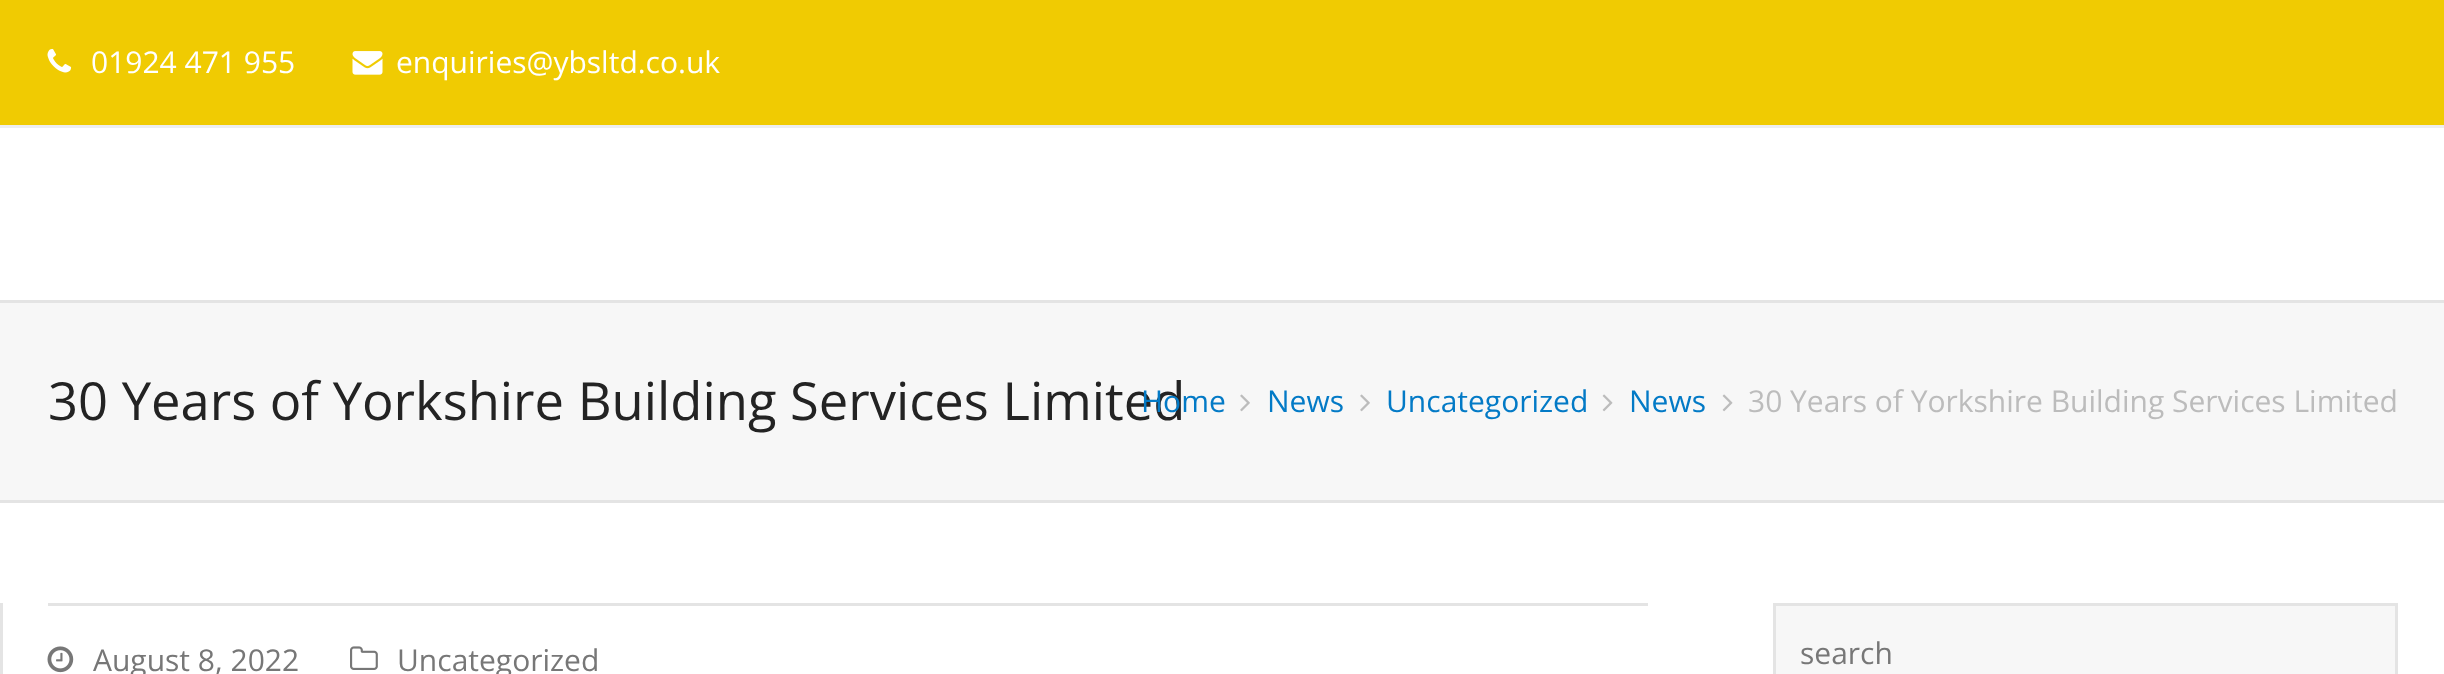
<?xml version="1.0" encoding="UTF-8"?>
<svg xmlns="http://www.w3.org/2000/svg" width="2444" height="674">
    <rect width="100%" height="100%" fill="#FFFFFF"/>
    <rect x="0" y="0" width="2444" height="125" fill="#F0CB02"/>
    <rect x="0" y="125" width="2444" height="3" fill="#EEEEEE"/>
    <image x="47" y="48" width="25" height="25" href="img_01.png"/>
    <text x="91" y="73" font-family="Open Sans" font-size="30" fill="#FFFFFF">01924 471 955</text>
    <image x="352" y="51" width="31" height="24" href="img_02.png"/>
    <text x="396" y="73" font-family="Open Sans" font-size="30" fill="#FFFFFF">enquiries@ybsltd.co.uk</text>
    <rect x="0" y="303" width="2444" height="197" fill="#F7F7F7"/>
    <rect x="0" y="300" width="2444" height="3" fill="#E4E4E4"/>
    <rect x="0" y="500" width="2444" height="3" fill="#E4E4E4"/>
    <text x="48" y="420" font-family="Open Sans" font-size="52.5" fill="#232323">30 Years of Yorkshire Building Services Limited</text>
    <text x="1141" y="412" font-family="Open Sans" font-size="30" fill="#037AC6">Home</text>
    <image x="1240" y="394" width="10" height="18" href="img_03.png"/>
    <text x="1267" y="412" font-family="Open Sans" font-size="30" fill="#037AC6">News</text>
    <image x="1360" y="394" width="10" height="18" href="img_03.png"/>
    <text x="1386" y="412" font-family="Open Sans" font-size="30" fill="#037AC6">Uncategorized</text>
    <image x="1602" y="394" width="11" height="18" href="img_04.png"/>
    <text x="1629" y="412" font-family="Open Sans" font-size="30" fill="#037AC6">News</text>
    <image x="1722" y="394" width="11" height="18" href="img_04.png"/>
    <text x="1748" y="412" font-family="Open Sans" font-size="30" fill="#BCBCBC">30 Years of Yorkshire Building Services Limited</text>
    <rect x="0" y="603" width="3" height="71" fill="#E4E4E4"/>
    <rect x="48" y="603" width="1600" height="3" fill="#E4E4E4"/>
    <image x="47" y="646" width="27" height="27" href="img_05.png"/>
    <text x="93" y="671" font-family="Open Sans" font-size="30" fill="#777777">August 8, 2022</text>
    <image x="350" y="646" width="28" height="24" href="img_06.png"/>
    <text x="397" y="671" font-family="Open Sans" font-size="30" fill="#777777">Uncategorized</text>
    <rect x="1774.5" y="604.5" width="622" height="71" fill="#F7F7F7" stroke="#E4E4E4" stroke-width="3"/>
    <text x="1800" y="664" font-family="Open Sans" font-size="30" fill="#777777">search</text>
</svg>
